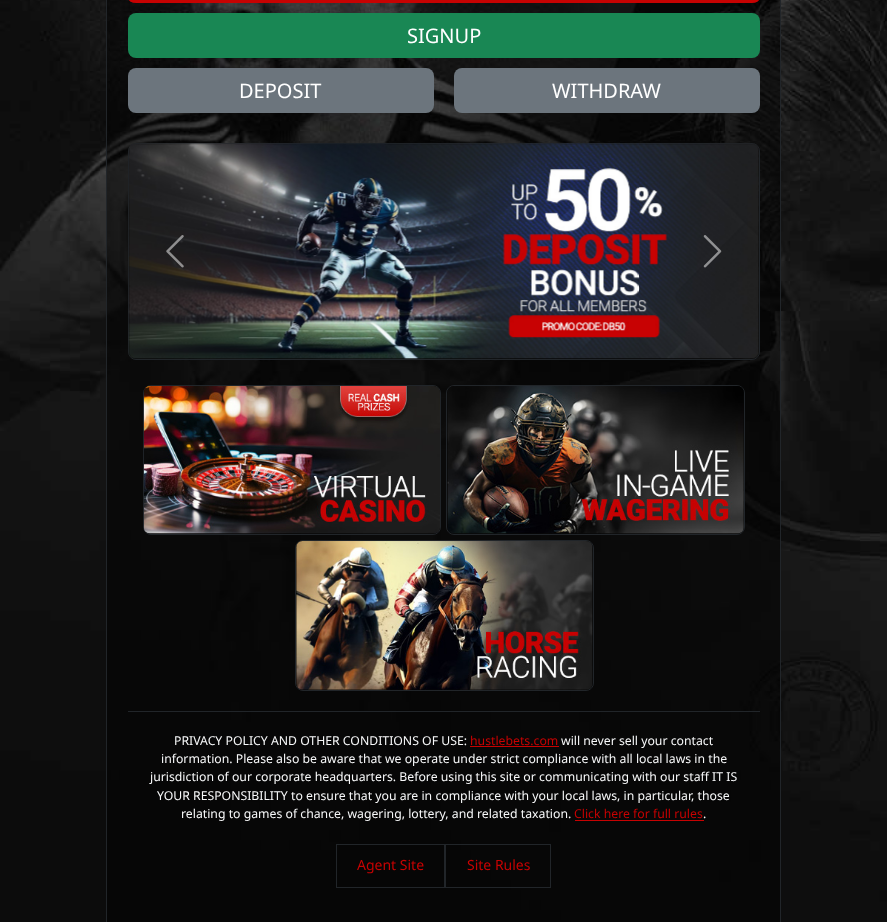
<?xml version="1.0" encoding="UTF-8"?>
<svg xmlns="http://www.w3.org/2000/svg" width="887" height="922">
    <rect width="100%" height="100%" fill="#FFFFFF"/>
    <image x="0" y="0" width="887" height="922" href="img_01.png"/>
    <rect x="106.5" y="-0.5" width="674" height="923" fill="#000000" fill-opacity="0.5" stroke="#212529"/>
    <rect x="128" y="-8" width="632" height="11" rx="8" fill="#C70202"/>
    <rect x="128" y="13" width="632" height="45" rx="8" fill="#198754"/>
    <text x="407" y="43" font-family="Noto Sans" font-size="20" fill="#FFFFFF">SIGNUP</text>
    <rect x="128" y="68" width="306" height="45" rx="8" fill="#6C757D"/>
    <text x="239" y="98" font-family="Noto Sans" font-size="20" fill="#FFFFFF">DEPOSIT</text>
    <rect x="454" y="68" width="306" height="45" rx="8" fill="#6C757D"/>
    <text x="552" y="98" font-family="Noto Sans" font-size="20" fill="#FFFFFF">WITHDRAW</text>
    <rect x="128.5" y="143.5" width="631" height="216" rx="7.5" fill="none" stroke="#212529"/>
    <image x="128" y="143" width="631" height="216" href="img_02.png"/>
    <image x="166" y="235" width="18" height="33" href="img_03.png"/>
    <image x="703" y="235" width="19" height="33" href="img_04.png"/>
    <rect x="143.5" y="385.5" width="297" height="149" rx="7.5" fill="none" stroke="#212529"/>
    <image x="143" y="386" width="297" height="148" href="img_05.png"/>
    <rect x="446.5" y="385.5" width="298" height="149" rx="7.5" fill="none" stroke="#212529"/>
    <image x="447" y="386" width="297" height="148" href="img_06.png"/>
    <rect x="295.5" y="540.5" width="298" height="150" rx="7.5" fill="none" stroke="#212529"/>
    <image x="296" y="541" width="297" height="149" href="img_07.png"/>
    <rect x="128" y="711" width="632" height="1" fill="#212529"/>
    <text x="174" y="745" font-family="Noto Sans" font-size="12.25" fill="#F8F9FA">PRIVACY POLICY AND OTHER CONDITIONS OF USE:</text>
    <text x="470" y="745" font-family="Noto Sans" font-size="12.25" fill="#C70202">hustlebets.com</text>
    <rect x="470" y="746" width="89" height="1" fill="#C70202"/>
    <text x="561" y="745" font-family="Noto Sans" font-size="12.25" fill="#F8F9FA">will never sell your contact</text>
    <text x="161" y="763" font-family="Noto Sans" font-size="12.25" fill="#F8F9FA">information. Please also be aware that we operate under strict compliance with all local laws in the</text>
    <text x="150" y="781" font-family="Noto Sans" font-size="12.25" fill="#F8F9FA">jurisdiction of our corporate headquarters. Before using this site or communicating with our staff IT IS</text>
    <text x="157" y="800" font-family="Noto Sans" font-size="12.25" fill="#F8F9FA">YOUR RESPONSIBILITY to ensure that you are in compliance with your local laws, in particular, those</text>
    <text x="181" y="818" font-family="Noto Sans" font-size="12.25" fill="#F8F9FA">relating to games of chance, wagering, lottery, and related taxation.</text>
    <text x="574" y="818" font-family="Noto Sans" font-size="12.25" fill="#C70202">Click here for full rules</text>
    <rect x="575" y="820" width="129" height="1" fill="#C70202"/>
    <text x="703" y="818" font-family="Noto Sans" font-size="12.25" fill="#F8F9FA">.</text>
    <rect x="336.5" y="844.5" width="108" height="43" fill="none" stroke="#212529"/>
    <text x="357" y="870" font-family="Noto Sans" font-size="14" fill="#C70202">Agent Site</text>
    <rect x="445.5" y="844.5" width="105" height="43" fill="none" stroke="#212529"/>
    <text x="467" y="870" font-family="Noto Sans" font-size="14" fill="#C70202">Site Rules</text>
</svg>
